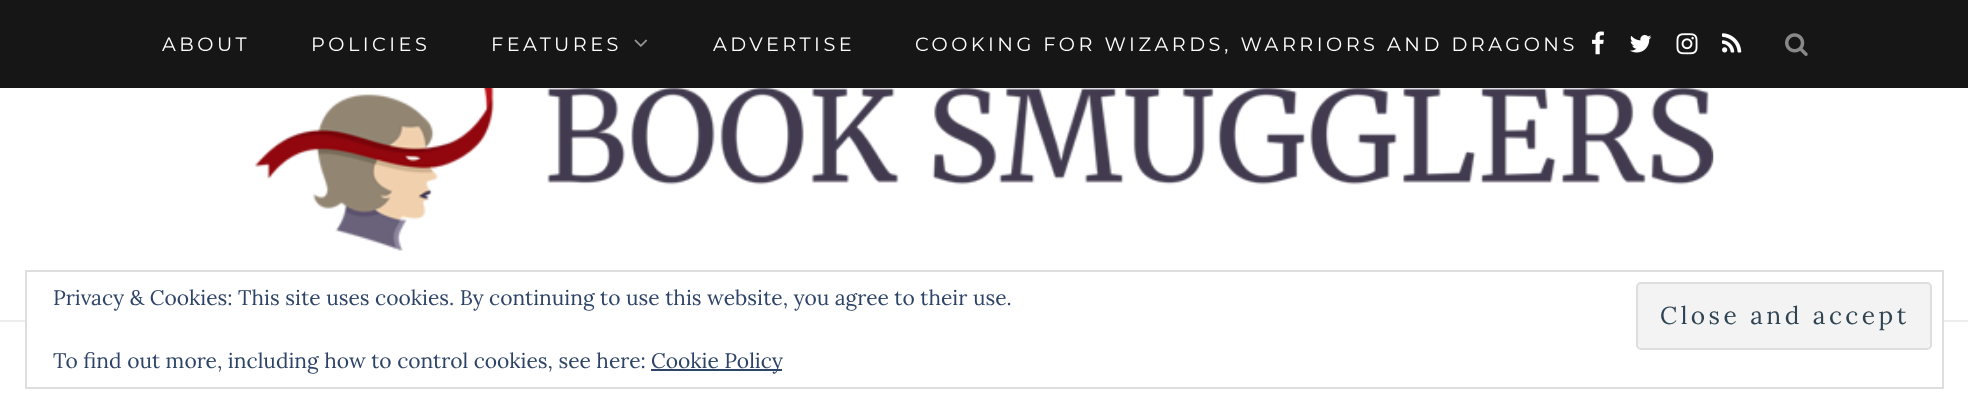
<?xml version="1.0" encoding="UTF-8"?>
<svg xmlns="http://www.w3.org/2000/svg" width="1968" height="413">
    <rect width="100%" height="100%" fill="#FFFFFF"/>
    <rect x="0" y="0" width="1968" height="88" fill="#161616"/>
    <text x="162" y="51" font-family="Montserrat" font-size="19.25" letter-spacing="3.5" fill="#FFFFFF">ABOUT</text>
    <text x="311" y="51" font-family="Montserrat" font-size="19.25" letter-spacing="3.5" fill="#FFFFFF">POLICIES</text>
    <text x="491" y="51" font-family="Montserrat" font-size="19.25" letter-spacing="3.5" fill="#FFFFFF">FEATURES</text>
    <image x="634" y="39" width="14" height="8" href="img_01.png"/>
    <text x="713" y="51" font-family="Montserrat" font-size="19.25" letter-spacing="3.5" fill="#FFFFFF">ADVERTISE</text>
    <text x="915" y="51" font-family="Montserrat" font-size="19.25" letter-spacing="3.5" fill="#FFFFFF">COOKING FOR WIZARDS, WARRIORS AND DRAGONS</text>
    <image x="1592" y="31" width="12" height="24" href="img_02.png"/>
    <image x="1630" y="35" width="22" height="18" href="img_03.png"/>
    <image x="1676" y="33" width="22" height="22" href="img_04.png"/>
    <image x="1722" y="33" width="20" height="20" href="img_05.png"/>
    <image x="1785" y="33" width="23" height="23" href="img_06.png"/>
    <rect x="0" y="320" width="1968" height="2" fill="#EEEEEE"/>
    <image x="255" y="88" width="1459" height="163" href="img_07.png"/>
    <rect x="27" y="320" width="1915" height="2" fill="#FFFFFF"/>
    <rect x="26" y="271" width="1917" height="117" fill="none" stroke="#DEDEDE" stroke-width="2"/>
    <text x="53" y="305" font-family="Lora" font-size="21" fill="#2E4467">Privacy &amp; Cookies: This site uses cookies. By continuing to use this website, you agree to their use.</text>
    <rect x="1637" y="283" width="294" height="66" rx="4" fill="#F3F3F3" stroke="#DEDEDE" stroke-width="2"/>
    <text x="1660" y="324" font-family="Lora" font-size="24.5" letter-spacing="3.5" fill="#2E4453">Close and accept</text>
    <text x="53" y="368" font-family="Lora" font-size="21" fill="#2E4467">To find out more, including how to control cookies, see here:</text>
    <rect x="651" y="369" width="131" height="2" fill="#2E4467"/>
    <text x="651" y="368" font-family="Lora" font-size="21" fill="#2E4467">Cookie Policy</text>
</svg>
